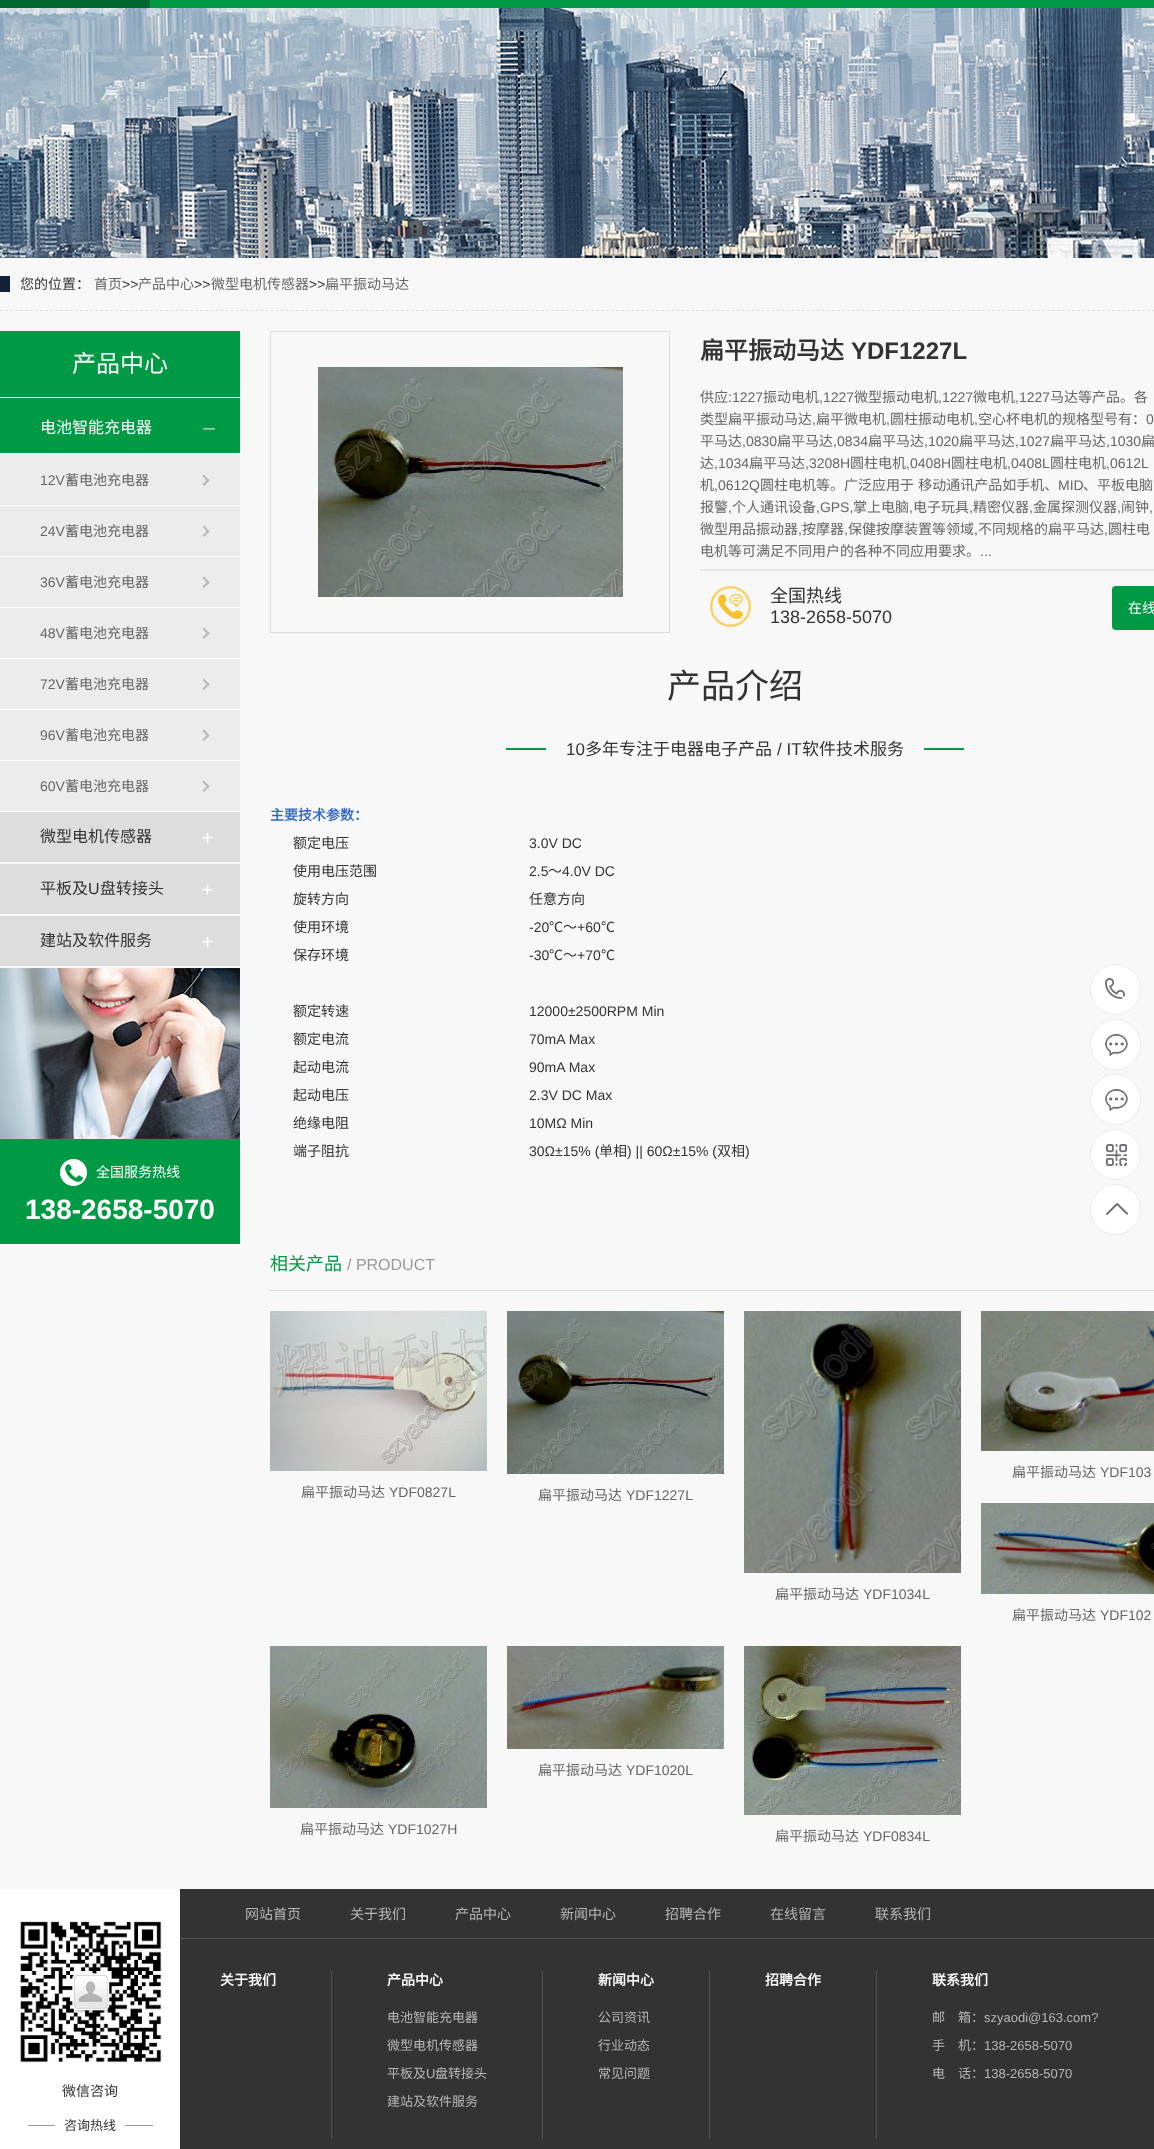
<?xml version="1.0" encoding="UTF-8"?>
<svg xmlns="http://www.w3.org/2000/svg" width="1154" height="2149">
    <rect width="100%" height="100%" fill="#F8F8F8"/>
    <rect x="150" y="0" width="1004" height="8" fill="#009A44"/>
    <rect x="0" y="0" width="150" height="8" fill="#00672F"/>
    <image x="0" y="8" width="1154" height="250" href="img_01.png"/>
    <path d="M 0 310.5 H 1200" fill="none" stroke="#DCDCDC" stroke-dasharray="3 2.01"/>
    <text x="20" y="289" font-family="Noto Sans CJK SC" font-size="14" fill="#333333">您的位置：</text>
    <rect x="0" y="276" width="10" height="16" fill="#142038"/>
    <text x="94" y="289" font-family="Noto Sans CJK SC" font-size="14" fill="#666666">首页</text>
    <text x="122" y="289" font-family="Liberation Sans" font-size="14" fill="#333333">&gt;&gt;</text>
    <text x="138" y="289" font-family="Noto Sans CJK SC" font-size="14" fill="#666666">产品中心</text>
    <text x="194" y="289" font-family="Liberation Sans" font-size="14" fill="#333333">&gt;&gt;</text>
    <text x="211" y="289" font-family="Noto Sans CJK SC" font-size="14" fill="#666666">微型电机传感器</text>
    <text x="309" y="289" font-family="Liberation Sans" font-size="14" fill="#333333">&gt;&gt;</text>
    <text x="325" y="289" font-family="Noto Sans CJK SC" font-size="14" fill="#666666">扁平振动马达</text>
    <rect x="0" y="331" width="240" height="122" fill="#009A44"/>
    <rect x="0" y="397" width="240" height="1" fill="#FFFFFF"/>
    <text x="72" y="372" font-family="Noto Sans CJK SC" font-size="24" fill="#FFFFFF">产品中心</text>
    <image x="203" y="428" width="12" height="2" href="img_02.png"/>
    <text x="40" y="433" font-family="Noto Sans CJK SC" font-size="16" fill="#FFFFFF">电池智能充电器</text>
    <rect x="0" y="505" width="240" height="1" fill="#FFFFFF"/>
    <rect x="0" y="455" width="240" height="50" fill="#ECECEC"/>
    <text x="40" y="485" font-family="Liberation Sans" font-size="14" fill="#666666">12V</text>
    <text x="65" y="485" font-family="Noto Sans CJK SC" font-size="14" fill="#666666">蓄电池充电器</text>
    <path d="M 204 474.5 L 209.5 480.5 L 208 482 L 202.5 476 Z" fill="#B8B8B8"/>
    <path d="M 208 479 L 209.5 480.5 L 204 486 L 202.5 484.5 Z" fill="#B8B8B8"/>
    <rect x="0" y="556" width="240" height="1" fill="#FFFFFF"/>
    <rect x="0" y="506" width="240" height="50" fill="#ECECEC"/>
    <text x="40" y="536" font-family="Liberation Sans" font-size="14" fill="#666666">24V</text>
    <text x="65" y="536" font-family="Noto Sans CJK SC" font-size="14" fill="#666666">蓄电池充电器</text>
    <path d="M 204 525.5 L 209.5 531.5 L 208 533 L 202.5 527 Z" fill="#B8B8B8"/>
    <path d="M 208 530 L 209.5 531.5 L 204 537 L 202.5 535.5 Z" fill="#B8B8B8"/>
    <rect x="0" y="607" width="240" height="1" fill="#FFFFFF"/>
    <rect x="0" y="557" width="240" height="50" fill="#ECECEC"/>
    <text x="40" y="587" font-family="Liberation Sans" font-size="14" fill="#666666">36V</text>
    <text x="65" y="587" font-family="Noto Sans CJK SC" font-size="14" fill="#666666">蓄电池充电器</text>
    <path d="M 204 576.5 L 209.5 582.5 L 208 584 L 202.5 578 Z" fill="#B8B8B8"/>
    <path d="M 208 581 L 209.5 582.5 L 204 588 L 202.5 586.5 Z" fill="#B8B8B8"/>
    <rect x="0" y="658" width="240" height="1" fill="#FFFFFF"/>
    <rect x="0" y="608" width="240" height="50" fill="#ECECEC"/>
    <text x="40" y="638" font-family="Liberation Sans" font-size="14" fill="#666666">48V</text>
    <text x="65" y="638" font-family="Noto Sans CJK SC" font-size="14" fill="#666666">蓄电池充电器</text>
    <path d="M 204 627.5 L 209.5 633.5 L 208 635 L 202.5 629 Z" fill="#B8B8B8"/>
    <path d="M 208 632 L 209.5 633.5 L 204 639 L 202.5 637.5 Z" fill="#B8B8B8"/>
    <rect x="0" y="709" width="240" height="1" fill="#FFFFFF"/>
    <rect x="0" y="659" width="240" height="50" fill="#ECECEC"/>
    <text x="40" y="689" font-family="Liberation Sans" font-size="14" fill="#666666">72V</text>
    <text x="65" y="689" font-family="Noto Sans CJK SC" font-size="14" fill="#666666">蓄电池充电器</text>
    <path d="M 204 678.5 L 209.5 684.5 L 208 686 L 202.5 680 Z" fill="#B8B8B8"/>
    <path d="M 208 683 L 209.5 684.5 L 204 690 L 202.5 688.5 Z" fill="#B8B8B8"/>
    <rect x="0" y="760" width="240" height="1" fill="#FFFFFF"/>
    <rect x="0" y="710" width="240" height="50" fill="#ECECEC"/>
    <text x="40" y="740" font-family="Liberation Sans" font-size="14" fill="#666666">96V</text>
    <text x="65" y="740" font-family="Noto Sans CJK SC" font-size="14" fill="#666666">蓄电池充电器</text>
    <path d="M 204 729.5 L 209.5 735.5 L 208 737 L 202.5 731 Z" fill="#B8B8B8"/>
    <path d="M 208 734 L 209.5 735.5 L 204 741 L 202.5 739.5 Z" fill="#B8B8B8"/>
    <rect x="0" y="811" width="240" height="1" fill="#FFFFFF"/>
    <rect x="0" y="761" width="240" height="50" fill="#ECECEC"/>
    <text x="40" y="791" font-family="Liberation Sans" font-size="14" fill="#666666">60V</text>
    <text x="65" y="791" font-family="Noto Sans CJK SC" font-size="14" fill="#666666">蓄电池充电器</text>
    <path d="M 204 780.5 L 209.5 786.5 L 208 788 L 202.5 782 Z" fill="#B8B8B8"/>
    <path d="M 208 785 L 209.5 786.5 L 204 792 L 202.5 790.5 Z" fill="#B8B8B8"/>
    <rect x="0" y="812" width="240" height="50" fill="#DDDDDD"/>
    <image x="202" y="832" width="11" height="11" href="img_03.png"/>
    <text x="40" y="842" font-family="Noto Sans CJK SC" font-size="16" fill="#333333">微型电机传感器</text>
    <rect x="0" y="864" width="240" height="50" fill="#DDDDDD"/>
    <image x="202" y="884" width="11" height="11" href="img_03.png"/>
    <text x="40" y="894" font-family="Noto Sans CJK SC" font-size="16" fill="#333333">平板及</text>
    <text x="88" y="894" font-family="Liberation Sans" font-size="16" fill="#333333">U</text>
    <text x="100" y="894" font-family="Noto Sans CJK SC" font-size="16" fill="#333333">盘转接头</text>
    <rect x="0" y="916" width="240" height="50" fill="#DDDDDD"/>
    <image x="202" y="936" width="11" height="11" href="img_03.png"/>
    <text x="40" y="946" font-family="Noto Sans CJK SC" font-size="16" fill="#333333">建站及软件服务</text>
    <image x="0" y="968" width="240" height="171" href="img_04.png"/>
    <rect x="0" y="1139" width="240" height="105" fill="#009A44"/>
    <image x="60" y="1159" width="27" height="27" href="img_05.png"/>
    <text x="96" y="1177" font-family="Noto Sans CJK SC" font-size="14" fill="#FFFFFF">全国服务热线</text>
    <text x="25" y="1219" font-family="Liberation Sans" font-size="28" font-weight="700" fill="#FFFFFF">138-2658-5070</text>
    <rect x="270.5" y="331.5" width="399" height="301" fill="none" stroke="#DDDDDD"/>
    <image x="318" y="367" width="305" height="230" href="img_06.png"/>
    <text x="700" y="359" font-family="Noto Sans CJK SC" font-size="24" font-weight="700" fill="#333333">扁平振动马达</text>
    <text x="851" y="359" font-family="Liberation Sans" font-size="24" font-weight="700" fill="#333333">YDF1227L</text>
    <text x="700" y="402" font-family="Noto Sans CJK SC" font-size="14" fill="#666666">供应</text>
    <text x="728" y="402" font-family="Liberation Sans" font-size="14" fill="#666666">:1227</text>
    <text x="763" y="402" font-family="Noto Sans CJK SC" font-size="14" fill="#666666">振动电机</text>
    <text x="819" y="402" font-family="Liberation Sans" font-size="14" fill="#666666">,1227</text>
    <text x="854" y="402" font-family="Noto Sans CJK SC" font-size="14" fill="#666666">微型振动电机</text>
    <text x="938" y="402" font-family="Liberation Sans" font-size="14" fill="#666666">,1227</text>
    <text x="973" y="402" font-family="Noto Sans CJK SC" font-size="14" fill="#666666">微电机</text>
    <text x="1015" y="402" font-family="Liberation Sans" font-size="14" fill="#666666">,1227</text>
    <text x="1050" y="402" font-family="Noto Sans CJK SC" font-size="14" fill="#666666">马达等产品。各</text>
    <text x="700" y="424" font-family="Noto Sans CJK SC" font-size="14" fill="#666666">类型扁平振动马达</text>
    <text x="812" y="424" font-family="Liberation Sans" font-size="14" fill="#666666">,</text>
    <text x="816" y="424" font-family="Noto Sans CJK SC" font-size="14" fill="#666666">扁平微电机</text>
    <text x="886" y="424" font-family="Liberation Sans" font-size="14" fill="#666666">,</text>
    <text x="890" y="424" font-family="Noto Sans CJK SC" font-size="14" fill="#666666">圆柱振动电机</text>
    <text x="974" y="424" font-family="Liberation Sans" font-size="14" fill="#666666">,</text>
    <text x="978" y="424" font-family="Noto Sans CJK SC" font-size="14" fill="#666666">空心杯电机的规格型号有：</text>
    <text x="1146" y="424" font-family="Liberation Sans" font-size="14" fill="#666666">0</text>
    <text x="700" y="446" font-family="Noto Sans CJK SC" font-size="14" fill="#666666">平马达</text>
    <text x="742" y="446" font-family="Liberation Sans" font-size="14" fill="#666666">,0830</text>
    <text x="777" y="446" font-family="Noto Sans CJK SC" font-size="14" fill="#666666">扁平马达</text>
    <text x="833" y="446" font-family="Liberation Sans" font-size="14" fill="#666666">,0834</text>
    <text x="868" y="446" font-family="Noto Sans CJK SC" font-size="14" fill="#666666">扁平马达</text>
    <text x="924" y="446" font-family="Liberation Sans" font-size="14" fill="#666666">,1020</text>
    <text x="959" y="446" font-family="Noto Sans CJK SC" font-size="14" fill="#666666">扁平马达</text>
    <text x="1015" y="446" font-family="Liberation Sans" font-size="14" fill="#666666">,1027</text>
    <text x="1050" y="446" font-family="Noto Sans CJK SC" font-size="14" fill="#666666">扁平马达</text>
    <text x="1106" y="446" font-family="Liberation Sans" font-size="14" fill="#666666">,1030</text>
    <text x="1141" y="446" font-family="Noto Sans CJK SC" font-size="14" fill="#666666">扁</text>
    <text x="700" y="468" font-family="Noto Sans CJK SC" font-size="14" fill="#666666">达</text>
    <text x="714" y="468" font-family="Liberation Sans" font-size="14" fill="#666666">,1034</text>
    <text x="749" y="468" font-family="Noto Sans CJK SC" font-size="14" fill="#666666">扁平马达</text>
    <text x="805" y="468" font-family="Liberation Sans" font-size="14" fill="#666666">,3208H</text>
    <text x="850" y="468" font-family="Noto Sans CJK SC" font-size="14" fill="#666666">圆柱电机</text>
    <text x="906" y="468" font-family="Liberation Sans" font-size="14" fill="#666666">,0408H</text>
    <text x="951" y="468" font-family="Noto Sans CJK SC" font-size="14" fill="#666666">圆柱电机</text>
    <text x="1007" y="468" font-family="Liberation Sans" font-size="14" fill="#666666">,0408L</text>
    <text x="1050" y="468" font-family="Noto Sans CJK SC" font-size="14" fill="#666666">圆柱电机</text>
    <text x="1106" y="468" font-family="Liberation Sans" font-size="14" fill="#666666">,0612L</text>
    <text x="700" y="490" font-family="Noto Sans CJK SC" font-size="14" fill="#666666">机</text>
    <text x="714" y="490" font-family="Liberation Sans" font-size="14" fill="#666666">,0612Q</text>
    <text x="760" y="490" word-spacing="1" font-family="Noto Sans CJK SC" font-size="14" fill="#666666">圆柱电机等。广泛应用于 移动通讯产品如手机、</text>
    <text x="1058" y="490" font-family="Liberation Sans" font-size="14" fill="#666666">MID</text>
    <text x="1083" y="490" font-family="Noto Sans CJK SC" font-size="14" fill="#666666">、平板电脑</text>
    <text x="700" y="512" font-family="Noto Sans CJK SC" font-size="14" fill="#666666">报警</text>
    <text x="728" y="512" font-family="Liberation Sans" font-size="14" fill="#666666">,</text>
    <text x="732" y="512" font-family="Noto Sans CJK SC" font-size="14" fill="#666666">个人通讯设备</text>
    <text x="816" y="512" font-family="Liberation Sans" font-size="14" fill="#666666">,GPS,</text>
    <text x="853" y="512" font-family="Noto Sans CJK SC" font-size="14" fill="#666666">掌上电脑</text>
    <text x="909" y="512" font-family="Liberation Sans" font-size="14" fill="#666666">,</text>
    <text x="913" y="512" font-family="Noto Sans CJK SC" font-size="14" fill="#666666">电子玩具</text>
    <text x="969" y="512" font-family="Liberation Sans" font-size="14" fill="#666666">,</text>
    <text x="973" y="512" font-family="Noto Sans CJK SC" font-size="14" fill="#666666">精密仪器</text>
    <text x="1029" y="512" font-family="Liberation Sans" font-size="14" fill="#666666">,</text>
    <text x="1033" y="512" font-family="Noto Sans CJK SC" font-size="14" fill="#666666">金属探测仪器</text>
    <text x="1117" y="512" font-family="Liberation Sans" font-size="14" fill="#666666">,</text>
    <text x="1121" y="512" font-family="Noto Sans CJK SC" font-size="14" fill="#666666">闹钟</text>
    <text x="1149" y="512" font-family="Liberation Sans" font-size="14" fill="#666666">,</text>
    <text x="700" y="534" font-family="Noto Sans CJK SC" font-size="14" fill="#666666">微型用品振动器</text>
    <text x="798" y="534" font-family="Liberation Sans" font-size="14" fill="#666666">,</text>
    <text x="802" y="534" font-family="Noto Sans CJK SC" font-size="14" fill="#666666">按摩器</text>
    <text x="844" y="534" font-family="Liberation Sans" font-size="14" fill="#666666">,</text>
    <text x="848" y="534" font-family="Noto Sans CJK SC" font-size="14" fill="#666666">保健按摩装置等领域</text>
    <text x="974" y="534" font-family="Liberation Sans" font-size="14" fill="#666666">,</text>
    <text x="978" y="534" font-family="Noto Sans CJK SC" font-size="14" fill="#666666">不同规格的扁平马达</text>
    <text x="1104" y="534" font-family="Liberation Sans" font-size="14" fill="#666666">,</text>
    <text x="1108" y="534" font-family="Noto Sans CJK SC" font-size="14" fill="#666666">圆柱电</text>
    <text x="700" y="556" font-family="Noto Sans CJK SC" font-size="14" fill="#666666">电机等可满足不同用户的各种不同应用要求。</text>
    <text x="980" y="556" font-family="Liberation Sans" font-size="14" fill="#666666">...</text>
    <image x="710" y="586" width="41" height="41" href="img_07.png"/>
    <rect x="700" y="569" width="454" height="2" fill="#E6E6E6"/>
    <text x="770" y="602" font-family="Noto Sans CJK SC" font-size="18" fill="#333333">全国热线</text>
    <rect x="1112" y="586" width="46" height="44" rx="4" fill="#009A44"/>
    <text x="1128" y="613" font-family="Noto Sans CJK SC" font-size="14" fill="#FFFFFF">在线</text>
    <text x="770" y="623" font-family="Liberation Sans" font-size="18" fill="#333333">138-2658-5070</text>
    <text x="667" y="698" font-family="Noto Sans CJK SC" font-size="34" fill="#333333">产品介绍</text>
    <rect x="506" y="748" width="40" height="2" fill="#009A44"/>
    <text x="566" y="755" font-family="Liberation Sans" font-size="17" fill="#333333">10</text>
    <text x="585" y="755" font-family="Noto Sans CJK SC" font-size="17" fill="#333333">多年专注于电器电子产品</text>
    <text x="777" y="755" font-family="Liberation Sans" font-size="17" fill="#333333">/ IT</text>
    <text x="802" y="755" font-family="Noto Sans CJK SC" font-size="17" fill="#333333">软件技术服务</text>
    <rect x="924" y="748" width="40" height="2" fill="#009A44"/>
    <text x="270" y="820" font-family="Noto Sans CJK SC" font-size="14" font-weight="700" fill="#3366CC">主要技术参数：</text>
    <text x="293" y="848" font-family="Noto Sans CJK SC" font-size="14" fill="#333333">额定电压</text>
    <text x="529" y="848" font-family="Liberation Sans" font-size="14" fill="#333333">3.0V DC</text>
    <text x="293" y="876" font-family="Noto Sans CJK SC" font-size="14" fill="#333333">使用电压范围</text>
    <text x="529" y="876" font-family="Liberation Sans" font-size="14" fill="#333333">2.5</text>
    <text x="548" y="876" font-family="Noto Sans CJK SC" font-size="14" fill="#333333">～</text>
    <text x="562" y="876" font-family="Liberation Sans" font-size="14" fill="#333333">4.0V DC</text>
    <text x="293" y="904" font-family="Noto Sans CJK SC" font-size="14" fill="#333333">旋转方向</text>
    <text x="529" y="904" font-family="Noto Sans CJK SC" font-size="14" fill="#333333">任意方向</text>
    <text x="293" y="932" font-family="Noto Sans CJK SC" font-size="14" fill="#333333">使用环境</text>
    <text x="529" y="932" font-family="Liberation Sans" font-size="14" fill="#333333">-20</text>
    <text x="549" y="932" font-family="Noto Sans CJK SC" font-size="14" fill="#333333">℃～</text>
    <text x="577" y="932" font-family="Liberation Sans" font-size="14" fill="#333333">+60</text>
    <text x="601" y="932" font-family="Noto Sans CJK SC" font-size="14" fill="#333333">℃</text>
    <text x="293" y="960" font-family="Noto Sans CJK SC" font-size="14" fill="#333333">保存环境</text>
    <text x="529" y="960" font-family="Liberation Sans" font-size="14" fill="#333333">-30</text>
    <text x="549" y="960" font-family="Noto Sans CJK SC" font-size="14" fill="#333333">℃～</text>
    <text x="577" y="960" font-family="Liberation Sans" font-size="14" fill="#333333">+70</text>
    <text x="601" y="960" font-family="Noto Sans CJK SC" font-size="14" fill="#333333">℃</text>
    <text x="293" y="1016" font-family="Noto Sans CJK SC" font-size="14" fill="#333333">额定转速</text>
    <text x="529" y="1016" font-family="Liberation Sans" font-size="14" fill="#333333">12000±2500RPM Min</text>
    <text x="293" y="1044" font-family="Noto Sans CJK SC" font-size="14" fill="#333333">额定电流</text>
    <text x="529" y="1044" font-family="Liberation Sans" font-size="14" fill="#333333">70mA Max</text>
    <text x="293" y="1072" font-family="Noto Sans CJK SC" font-size="14" fill="#333333">起动电流</text>
    <text x="529" y="1072" font-family="Liberation Sans" font-size="14" fill="#333333">90mA Max</text>
    <text x="293" y="1100" font-family="Noto Sans CJK SC" font-size="14" fill="#333333">起动电压</text>
    <text x="529" y="1100" font-family="Liberation Sans" font-size="14" fill="#333333">2.3V DC Max</text>
    <text x="293" y="1128" font-family="Noto Sans CJK SC" font-size="14" fill="#333333">绝缘电阻</text>
    <text x="529" y="1128" font-family="Liberation Sans" font-size="14" fill="#333333">10MΩ Min</text>
    <text x="293" y="1156" font-family="Noto Sans CJK SC" font-size="14" fill="#333333">端子阻抗</text>
    <text x="529" y="1156" font-family="Liberation Sans" font-size="14" fill="#333333">30Ω±15% (</text>
    <text x="599" y="1156" font-family="Noto Sans CJK SC" font-size="14" fill="#333333">单相</text>
    <text x="627" y="1156" font-family="Liberation Sans" font-size="14" fill="#333333">) || 60Ω±15% (</text>
    <text x="717" y="1156" font-family="Noto Sans CJK SC" font-size="14" fill="#333333">双相</text>
    <text x="745" y="1156" font-family="Liberation Sans" font-size="14" fill="#333333">)</text>
    <rect x="270" y="1290" width="884" height="1" fill="#DDDDDD"/>
    <text x="270" y="1270" font-family="Noto Sans CJK SC" font-size="18" fill="#009A44">相关产品</text>
    <text x="347" y="1270" font-family="Liberation Sans" font-size="16" fill="#999999">/ PRODUCT</text>
    <image x="981" y="1311" width="173" height="140" href="img_08.png"/>
    <text x="1012" y="1477" font-family="Noto Sans CJK SC" font-size="14" fill="#666666">扁平振动马达</text>
    <text x="1100" y="1477" font-family="Liberation Sans" font-size="14" fill="#666666">YDF103</text>
    <image x="270" y="1311" width="217" height="160" href="img_09.png"/>
    <text x="301" y="1497" font-family="Noto Sans CJK SC" font-size="14" fill="#666666">扁平振动马达</text>
    <text x="389" y="1497" font-family="Liberation Sans" font-size="14" fill="#666666">YDF0827L</text>
    <image x="507" y="1311" width="217" height="163" href="img_10.png"/>
    <text x="538" y="1500" font-family="Noto Sans CJK SC" font-size="14" fill="#666666">扁平振动马达</text>
    <text x="626" y="1500" font-family="Liberation Sans" font-size="14" fill="#666666">YDF1227L</text>
    <image x="744" y="1311" width="217" height="262" href="img_11.png"/>
    <text x="775" y="1599" font-family="Noto Sans CJK SC" font-size="14" fill="#666666">扁平振动马达</text>
    <text x="863" y="1599" font-family="Liberation Sans" font-size="14" fill="#666666">YDF1034L</text>
    <image x="981" y="1503" width="173" height="91" href="img_12.png"/>
    <text x="1012" y="1620" font-family="Noto Sans CJK SC" font-size="14" fill="#666666">扁平振动马达</text>
    <text x="1100" y="1620" font-family="Liberation Sans" font-size="14" fill="#666666">YDF102</text>
    <image x="507" y="1646" width="217" height="103" href="img_13.png"/>
    <text x="538" y="1775" font-family="Noto Sans CJK SC" font-size="14" fill="#666666">扁平振动马达</text>
    <text x="626" y="1775" font-family="Liberation Sans" font-size="14" fill="#666666">YDF1020L</text>
    <image x="270" y="1646" width="217" height="162" href="img_14.png"/>
    <text x="300" y="1834" font-family="Noto Sans CJK SC" font-size="14" fill="#666666">扁平振动马达</text>
    <text x="388" y="1834" font-family="Liberation Sans" font-size="14" fill="#666666">YDF1027H</text>
    <image x="744" y="1646" width="217" height="169" href="img_15.png"/>
    <text x="775" y="1841" font-family="Noto Sans CJK SC" font-size="14" fill="#666666">扁平振动马达</text>
    <text x="863" y="1841" font-family="Liberation Sans" font-size="14" fill="#666666">YDF0834L</text>
    <circle cx="1115.5" cy="989.5" r="25" fill="#FFFFFF" stroke="#EBEBEB"/>
    <image x="1105" y="978" width="20" height="21" href="img_16.png"/>
    <circle cx="1115.5" cy="1044.5" r="25" fill="#FFFFFF" stroke="#EBEBEB"/>
    <image x="1105" y="1034" width="23" height="22" href="img_17.png"/>
    <circle cx="1115.5" cy="1099.5" r="25" fill="#FFFFFF" stroke="#EBEBEB"/>
    <image x="1105" y="1089" width="23" height="22" href="img_17.png"/>
    <circle cx="1115.5" cy="1154.5" r="25" fill="#FFFFFF" stroke="#EBEBEB"/>
    <image x="1106" y="1144" width="21" height="22" href="img_18.png"/>
    <circle cx="1115.5" cy="1209.5" r="25" fill="#FFFFFF" stroke="#EBEBEB"/>
    <image x="1106" y="1203" width="22" height="12" href="img_19.png"/>
    <rect x="180" y="1889" width="974" height="260" fill="#333333"/>
    <rect x="180" y="1938" width="974" height="1" fill="#545454"/>
    <text x="245" y="1919" font-family="Noto Sans CJK SC" font-size="14" fill="#B6B6B6">网站首页</text>
    <text x="350" y="1919" font-family="Noto Sans CJK SC" font-size="14" fill="#B6B6B6">关于我们</text>
    <text x="455" y="1919" font-family="Noto Sans CJK SC" font-size="14" fill="#B6B6B6">产品中心</text>
    <text x="560" y="1919" font-family="Noto Sans CJK SC" font-size="14" fill="#B6B6B6">新闻中心</text>
    <text x="665" y="1919" font-family="Noto Sans CJK SC" font-size="14" fill="#B6B6B6">招聘合作</text>
    <text x="770" y="1919" font-family="Noto Sans CJK SC" font-size="14" fill="#B6B6B6">在线留言</text>
    <text x="875" y="1919" font-family="Noto Sans CJK SC" font-size="14" fill="#B6B6B6">联系我们</text>
    <rect x="0" y="1889" width="180" height="260" fill="#FFFFFF"/>
    <image x="20" y="1921" width="142" height="142" href="img_20.png"/>
    <text x="62" y="2096" font-family="Noto Sans CJK SC" font-size="14" fill="#333333">微信咨询</text>
    <rect x="28" y="2125" width="125" height="1" fill="#999999"/>
    <rect x="55" y="2125" width="70" height="1" fill="#FFFFFF"/>
    <text x="64" y="2130" font-family="Noto Sans CJK SC" font-size="13" fill="#333333">咨询热线</text>
    <text x="220" y="1985" font-family="Noto Sans CJK SC" font-size="14" font-weight="700" fill="#FFFFFF">关于我们</text>
    <rect x="331" y="1971" width="1" height="168" fill="#545454"/>
    <text x="387" y="1985" font-family="Noto Sans CJK SC" font-size="14" font-weight="700" fill="#FFFFFF">产品中心</text>
    <text x="387" y="2022" font-family="Noto Sans CJK SC" font-size="13" fill="#B6B6B6">电池智能充电器</text>
    <text x="387" y="2050" font-family="Noto Sans CJK SC" font-size="13" fill="#B6B6B6">微型电机传感器</text>
    <text x="387" y="2078" font-family="Noto Sans CJK SC" font-size="13" fill="#B6B6B6">平板及</text>
    <text x="426" y="2078" font-family="Liberation Sans" font-size="13" fill="#B6B6B6">U</text>
    <text x="435" y="2078" font-family="Noto Sans CJK SC" font-size="13" fill="#B6B6B6">盘转接头</text>
    <text x="387" y="2106" font-family="Noto Sans CJK SC" font-size="13" fill="#B6B6B6">建站及软件服务</text>
    <rect x="542" y="1971" width="1" height="168" fill="#545454"/>
    <text x="598" y="1985" font-family="Noto Sans CJK SC" font-size="14" font-weight="700" fill="#FFFFFF">新闻中心</text>
    <text x="598" y="2022" font-family="Noto Sans CJK SC" font-size="13" fill="#B6B6B6">公司资讯</text>
    <text x="598" y="2050" font-family="Noto Sans CJK SC" font-size="13" fill="#B6B6B6">行业动态</text>
    <text x="598" y="2078" font-family="Noto Sans CJK SC" font-size="13" fill="#B6B6B6">常见问题</text>
    <rect x="709" y="1971" width="1" height="168" fill="#545454"/>
    <text x="765" y="1985" font-family="Noto Sans CJK SC" font-size="14" font-weight="700" fill="#FFFFFF">招聘合作</text>
    <rect x="876" y="1971" width="1" height="168" fill="#545454"/>
    <text x="932" y="1985" font-family="Noto Sans CJK SC" font-size="14" font-weight="700" fill="#FFFFFF">联系我们</text>
    <text x="932" y="2022" font-family="Noto Sans CJK SC" font-size="13" fill="#B6B6B6">邮　箱：</text>
    <text x="984" y="2022" font-family="Liberation Sans" font-size="13" fill="#B6B6B6">szyaodi@163.com?</text>
    <text x="932" y="2050" font-family="Noto Sans CJK SC" font-size="13" fill="#B6B6B6">手　机：</text>
    <text x="984" y="2050" font-family="Liberation Sans" font-size="13" fill="#B6B6B6">138-2658-5070</text>
    <text x="932" y="2078" font-family="Noto Sans CJK SC" font-size="13" fill="#B6B6B6">电　话：</text>
    <text x="984" y="2078" font-family="Liberation Sans" font-size="13" fill="#B6B6B6">138-2658-5070</text>
</svg>
